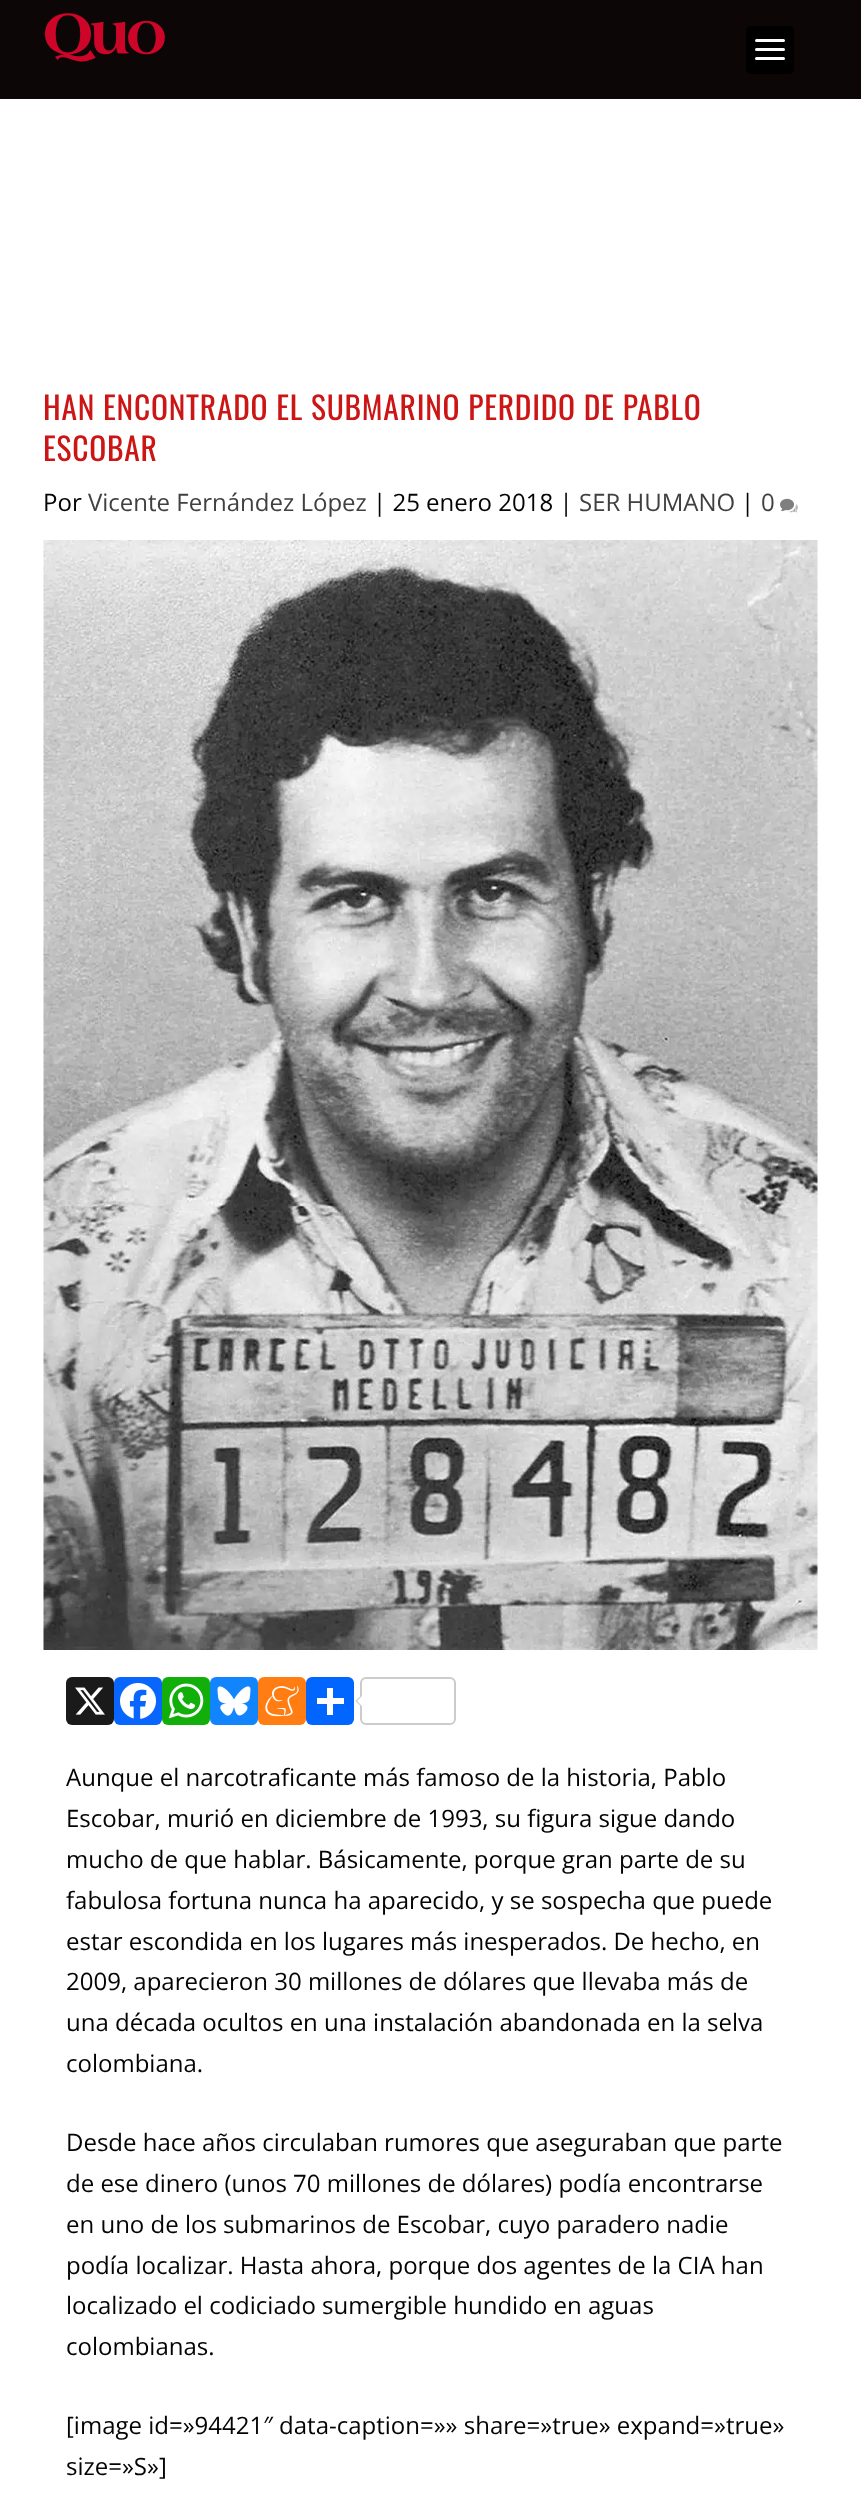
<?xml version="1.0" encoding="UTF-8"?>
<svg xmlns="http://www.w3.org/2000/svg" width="861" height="2504">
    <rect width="100%" height="100%" fill="#FFFFFF"/>
    <rect x="0" y="0" width="861" height="99" fill="#0C0606"/>
    <image x="45" y="13" width="120" height="49" href="img_01.png"/>
    <rect x="746" y="26" width="48" height="48" rx="5" fill="#000000"/>
    <rect x="755" y="39" width="30" height="3" rx="1.5" fill="#FFFFFF"/>
    <rect x="755" y="48" width="30" height="3" rx="1.5" fill="#FFFFFF"/>
    <rect x="755" y="57" width="30" height="3" rx="1.5" fill="#FFFFFF"/>
    <text font-family="Oswald" font-size="31.5" letter-spacing="0.75" fill="#CC1515">
        <tspan x="43" y="420">HAN ENCONTRADO EL SUBMARINO PERDIDO DE PABLO</tspan>
        <tspan x="43" y="461">ESCOBAR</tspan>
    </text>
    <text x="43" y="511" font-family="Open Sans" font-size="24" fill="#030303">Por</text>
    <text x="88" y="511" font-family="Open Sans" font-size="24" fill="#404040">Vicente Fernández López</text>
    <text x="373" y="511" font-family="Open Sans" font-size="24" fill="#030303">| 25 enero 2018 |</text>
    <text x="579" y="511" font-family="Open Sans" font-size="24" fill="#404040">SER HUMANO</text>
    <text x="741" y="511" font-family="Open Sans" font-size="24" fill="#030303">|</text>
    <text x="761" y="511" font-family="Open Sans" font-size="24" fill="#404040">0</text>
    <image x="780" y="498" width="18" height="15" href="img_02.png"/>
    <image x="43" y="540" width="775" height="1110" href="img_03.png"/>
    <rect x="66" y="1677" width="48" height="48" rx="6" fill="#1A1A1A"/>
    <image x="75" y="1687" width="30" height="28" href="img_04.png"/>
    <rect x="114" y="1677" width="48" height="48" rx="6" fill="#0866FF"/>
    <image x="120" y="1683" width="36" height="36" href="img_05.png"/>
    <rect x="162" y="1677" width="48" height="48" rx="6" fill="#12AF0A"/>
    <image x="168" y="1683" width="36" height="36" href="img_06.png"/>
    <rect x="210" y="1677" width="48" height="48" rx="6" fill="#1285FE"/>
    <image x="217" y="1686" width="34" height="30" href="img_07.png"/>
    <rect x="258" y="1677" width="48" height="48" rx="6" fill="#FF7D12"/>
    <image x="265" y="1685" width="34" height="32" href="img_08.png"/>
    <rect x="306" y="1677" width="48" height="48" rx="6" fill="#0166FF"/>
    <rect x="327" y="1688" width="6" height="27" fill="#FFFFFF"/>
    <rect x="317" y="1698" width="27" height="6" fill="#FFFFFF"/>
    <rect x="361" y="1678" width="94" height="46" rx="5" fill="none" stroke="#CCCCCC" stroke-width="2"/>
    <path d="M 361.5 1695 V 1707 L 355.5 1701 Z" fill="#CCCCCC"/>
    <path d="M 363 1695 V 1707 L 357 1701 Z" fill="#FFFFFF"/>
    <text font-family="Open Sans" font-size="24" fill="#030303">
        <tspan x="66" y="1786">Aunque el narcotraficante más famoso de la historia, Pablo</tspan>
        <tspan x="66" y="1827">Escobar, murió en diciembre de 1993, su figura sigue dando</tspan>
        <tspan x="66" y="1868">mucho de que hablar. Básicamente, porque gran parte de su</tspan>
        <tspan x="66" y="1909">fabulosa fortuna nunca ha aparecido, y se sospecha que puede</tspan>
        <tspan x="66" y="1950">estar escondida en los lugares más inesperados. De hecho, en</tspan>
        <tspan x="66" y="1990">2009, aparecieron 30 millones de dólares que llevaba más de</tspan>
        <tspan x="66" y="2031">una década ocultos en una instalación abandonada en la selva</tspan>
        <tspan x="66" y="2072">colombiana.</tspan>
    </text>
    <text font-family="Open Sans" font-size="24" fill="#030303">
        <tspan x="66" y="2151">Desde hace años circulaban rumores que aseguraban que parte</tspan>
        <tspan x="66" y="2192">de ese dinero (unos 70 millones de dólares) podía encontrarse</tspan>
        <tspan x="66" y="2233">en uno de los submarinos de Escobar, cuyo paradero nadie</tspan>
        <tspan x="66" y="2274">podía localizar. Hasta ahora, porque dos agentes de la CIA han</tspan>
        <tspan x="66" y="2314">localizado el codiciado sumergible hundido en aguas</tspan>
        <tspan x="66" y="2355">colombianas.</tspan>
    </text>
    <text font-family="Open Sans" font-size="24" fill="#030303">
        <tspan x="66" y="2434">[image id=»94421″ data-caption=»» share=»true» expand=»true»</tspan>
        <tspan x="66" y="2475">size=»S»]</tspan>
    </text>
</svg>
